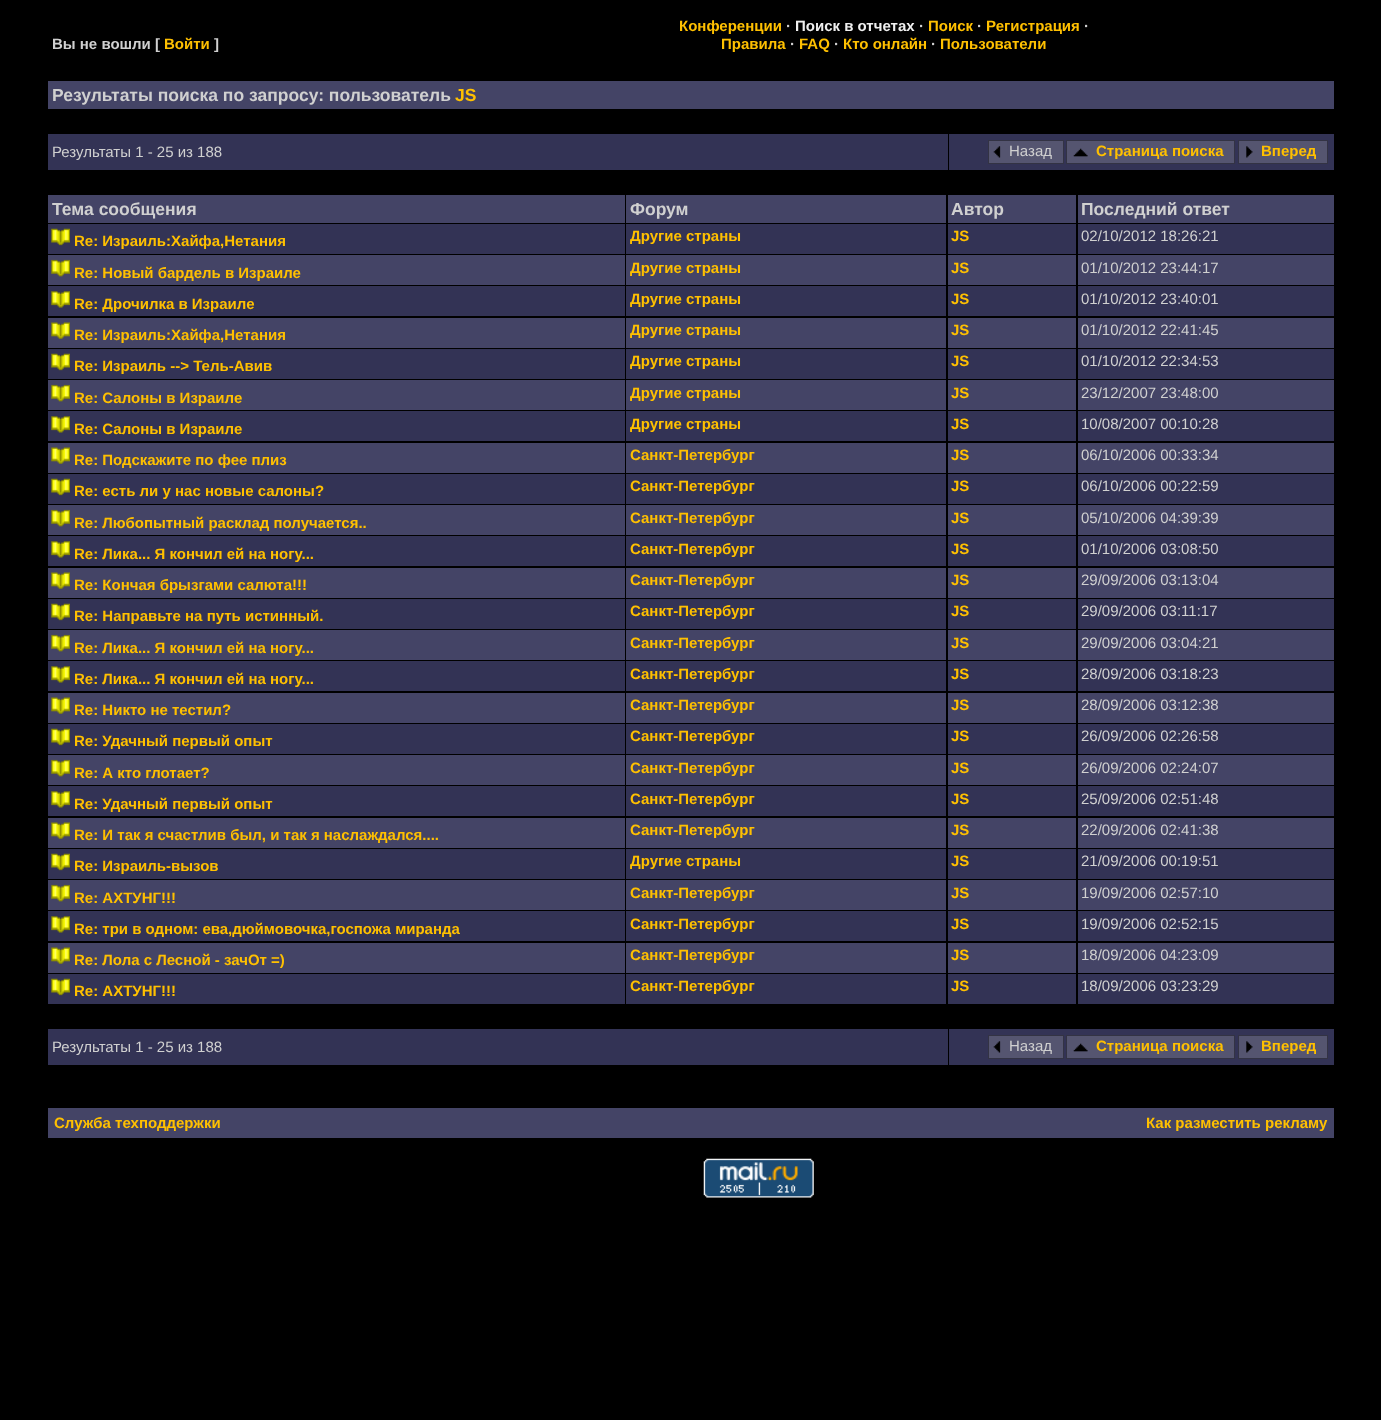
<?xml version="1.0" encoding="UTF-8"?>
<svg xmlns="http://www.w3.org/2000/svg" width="1381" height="1420">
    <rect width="100%" height="100%" fill="#000000"/>
    <text x="52" y="49" font-family="Liberation Sans" font-size="15" font-weight="700" fill="#D0D0D0">Вы не вошли [</text>
    <text x="164" y="49" font-family="Liberation Sans" font-size="15" font-weight="700" fill="#FFC000">Войти</text>
    <text x="214" y="49" font-family="Liberation Sans" font-size="15" font-weight="700" fill="#D0D0D0">]</text>
    <text x="679" y="31" font-family="Liberation Sans" font-size="15" font-weight="700" fill="#FFC000">Конференции</text>
    <text x="786" y="31" font-family="Liberation Sans" font-size="15" font-weight="700" fill="#D0D0D0">·</text>
    <text x="795" y="31" font-family="Liberation Sans" font-size="15" font-weight="700" fill="#F0F0F0">Поиск в отчетах</text>
    <text x="919" y="31" font-family="Liberation Sans" font-size="15" font-weight="700" fill="#D0D0D0">·</text>
    <text x="928" y="31" font-family="Liberation Sans" font-size="15" font-weight="700" fill="#FFC000">Поиск</text>
    <text x="977" y="31" font-family="Liberation Sans" font-size="15" font-weight="700" fill="#D0D0D0">·</text>
    <text x="986" y="31" font-family="Liberation Sans" font-size="15" font-weight="700" fill="#FFC000">Регистрация</text>
    <text x="1084" y="31" font-family="Liberation Sans" font-size="15" font-weight="700" fill="#D0D0D0">·</text>
    <text x="721" y="49" font-family="Liberation Sans" font-size="15" font-weight="700" fill="#FFC000">Правила</text>
    <text x="790" y="49" font-family="Liberation Sans" font-size="15" font-weight="700" fill="#D0D0D0">·</text>
    <text x="799" y="49" font-family="Liberation Sans" font-size="15" font-weight="700" fill="#FFC000">FAQ</text>
    <text x="834" y="49" font-family="Liberation Sans" font-size="15" font-weight="700" fill="#D0D0D0">·</text>
    <text x="843" y="49" font-family="Liberation Sans" font-size="15" font-weight="700" fill="#FFC000">Кто онлайн</text>
    <text x="931" y="49" font-family="Liberation Sans" font-size="15" font-weight="700" fill="#D0D0D0">·</text>
    <text x="940" y="49" font-family="Liberation Sans" font-size="15" font-weight="700" fill="#FFC000">Пользователи</text>
    <rect x="48" y="81" width="1286" height="28" fill="#444466"/>
    <text x="52" y="101" font-family="Liberation Sans" font-size="17.5" font-weight="700" fill="#D0D0D0">Результаты поиска по запросу: пользователь</text>
    <text x="455" y="101" font-family="Liberation Sans" font-size="17.5" font-weight="700" fill="#FFC000">JS</text>
    <rect x="48" y="134" width="900" height="36" fill="#333355"/>
    <text x="52" y="157" font-family="Liberation Sans" font-size="15" fill="#D0D0D0">Результаты 1 - 25 из 188</text>
    <rect x="949" y="134" width="385" height="36" fill="#333355"/>
    <rect x="988.5" y="140.5" width="75" height="23" fill="#555570" stroke="#333344"/>
    <image x="993" y="146" width="8" height="12" href="img_01.png"/>
    <text x="1009" y="156" font-family="Liberation Sans" font-size="15" fill="#D0D0D0">Назад</text>
    <rect x="1066.5" y="140.5" width="168" height="23" fill="#555570" stroke="#333344"/>
    <image x="1073" y="148" width="15" height="9" href="img_02.png"/>
    <text x="1096" y="156" font-family="Liberation Sans" font-size="15" font-weight="700" fill="#FFC000">Страница поиска</text>
    <rect x="1238.5" y="140.5" width="89" height="23" fill="#555570" stroke="#333344"/>
    <image x="1246" y="146" width="7" height="12" href="img_03.png"/>
    <text x="1261" y="156" font-family="Liberation Sans" font-size="15" font-weight="700" fill="#FFC000">Вперед</text>
    <rect x="48" y="195" width="577" height="28" fill="#444466"/>
    <text x="52" y="215" font-family="Liberation Sans" font-size="17.5" font-weight="700" fill="#D0D0D0">Тема сообщения</text>
    <rect x="626" y="195" width="320" height="28" fill="#444466"/>
    <text x="630" y="215" font-family="Liberation Sans" font-size="17.5" font-weight="700" fill="#D0D0D0">Форум</text>
    <rect x="948" y="195" width="128" height="28" fill="#444466"/>
    <text x="951" y="215" font-family="Liberation Sans" font-size="17.5" font-weight="700" fill="#D0D0D0">Автор</text>
    <rect x="1078" y="195" width="256" height="28" fill="#444466"/>
    <text x="1081" y="215" font-family="Liberation Sans" font-size="17.5" font-weight="700" fill="#D0D0D0">Последний ответ</text>
    <rect x="48" y="224" width="577" height="30" fill="#333355"/>
    <image x="51" y="228" width="19" height="18" href="img_04.png"/>
    <text x="74" y="246" font-family="Liberation Sans" font-size="15" font-weight="700" fill="#FFC000">Re: Израиль:Хайфа,Нетания</text>
    <rect x="626" y="224" width="320" height="30" fill="#333355"/>
    <text x="630" y="241" font-family="Liberation Sans" font-size="15" font-weight="700" fill="#FFC000">Другие страны</text>
    <rect x="948" y="224" width="128" height="30" fill="#333355"/>
    <text x="951" y="241" font-family="Liberation Sans" font-size="15" font-weight="700" fill="#FFC000">JS</text>
    <rect x="1078" y="224" width="256" height="30" fill="#333355"/>
    <text x="1081" y="241" font-family="Liberation Sans" font-size="15" fill="#D0D0D0">02/10/2012 18:26:21</text>
    <rect x="48" y="255" width="577" height="30" fill="#444466"/>
    <image x="51" y="259" width="19" height="18" href="img_05.png"/>
    <text x="74" y="278" font-family="Liberation Sans" font-size="15" font-weight="700" fill="#FFC000">Re: Новый бардель в Израиле</text>
    <rect x="626" y="255" width="320" height="30" fill="#444466"/>
    <text x="630" y="273" font-family="Liberation Sans" font-size="15" font-weight="700" fill="#FFC000">Другие страны</text>
    <rect x="948" y="255" width="128" height="30" fill="#444466"/>
    <text x="951" y="273" font-family="Liberation Sans" font-size="15" font-weight="700" fill="#FFC000">JS</text>
    <rect x="1078" y="255" width="256" height="30" fill="#444466"/>
    <text x="1081" y="273" font-family="Liberation Sans" font-size="15" fill="#D0D0D0">01/10/2012 23:44:17</text>
    <rect x="48" y="286" width="577" height="30" fill="#333355"/>
    <image x="51" y="291" width="19" height="17" href="img_06.png"/>
    <text x="74" y="309" font-family="Liberation Sans" font-size="15" font-weight="700" fill="#FFC000">Re: Дрочилка в Израиле</text>
    <rect x="626" y="286" width="320" height="30" fill="#333355"/>
    <text x="630" y="304" font-family="Liberation Sans" font-size="15" font-weight="700" fill="#FFC000">Другие страны</text>
    <rect x="948" y="286" width="128" height="30" fill="#333355"/>
    <text x="951" y="304" font-family="Liberation Sans" font-size="15" font-weight="700" fill="#FFC000">JS</text>
    <rect x="1078" y="286" width="256" height="30" fill="#333355"/>
    <text x="1081" y="304" font-family="Liberation Sans" font-size="15" fill="#D0D0D0">01/10/2012 23:40:01</text>
    <rect x="48" y="318" width="577" height="30" fill="#444466"/>
    <image x="51" y="322" width="19" height="17" href="img_07.png"/>
    <text x="74" y="340" font-family="Liberation Sans" font-size="15" font-weight="700" fill="#FFC000">Re: Израиль:Хайфа,Нетания</text>
    <rect x="626" y="318" width="320" height="30" fill="#444466"/>
    <text x="630" y="335" font-family="Liberation Sans" font-size="15" font-weight="700" fill="#FFC000">Другие страны</text>
    <rect x="948" y="318" width="128" height="30" fill="#444466"/>
    <text x="951" y="335" font-family="Liberation Sans" font-size="15" font-weight="700" fill="#FFC000">JS</text>
    <rect x="1078" y="318" width="256" height="30" fill="#444466"/>
    <text x="1081" y="335" font-family="Liberation Sans" font-size="15" fill="#D0D0D0">01/10/2012 22:41:45</text>
    <rect x="48" y="349" width="577" height="30" fill="#333355"/>
    <image x="51" y="353" width="19" height="18" href="img_04.png"/>
    <text x="74" y="371" font-family="Liberation Sans" font-size="15" font-weight="700" fill="#FFC000">Re: Израиль --&gt; Тель-Авив</text>
    <rect x="626" y="349" width="320" height="30" fill="#333355"/>
    <text x="630" y="366" font-family="Liberation Sans" font-size="15" font-weight="700" fill="#FFC000">Другие страны</text>
    <rect x="948" y="349" width="128" height="30" fill="#333355"/>
    <text x="951" y="366" font-family="Liberation Sans" font-size="15" font-weight="700" fill="#FFC000">JS</text>
    <rect x="1078" y="349" width="256" height="30" fill="#333355"/>
    <text x="1081" y="366" font-family="Liberation Sans" font-size="15" fill="#D0D0D0">01/10/2012 22:34:53</text>
    <rect x="48" y="380" width="577" height="30" fill="#444466"/>
    <image x="51" y="384" width="19" height="18" href="img_05.png"/>
    <text x="74" y="403" font-family="Liberation Sans" font-size="15" font-weight="700" fill="#FFC000">Re: Салоны в Израиле</text>
    <rect x="626" y="380" width="320" height="30" fill="#444466"/>
    <text x="630" y="398" font-family="Liberation Sans" font-size="15" font-weight="700" fill="#FFC000">Другие страны</text>
    <rect x="948" y="380" width="128" height="30" fill="#444466"/>
    <text x="951" y="398" font-family="Liberation Sans" font-size="15" font-weight="700" fill="#FFC000">JS</text>
    <rect x="1078" y="380" width="256" height="30" fill="#444466"/>
    <text x="1081" y="398" font-family="Liberation Sans" font-size="15" fill="#D0D0D0">23/12/2007 23:48:00</text>
    <rect x="48" y="411" width="577" height="30" fill="#333355"/>
    <image x="51" y="416" width="19" height="17" href="img_08.png"/>
    <text x="74" y="434" font-family="Liberation Sans" font-size="15" font-weight="700" fill="#FFC000">Re: Салоны в Израиле</text>
    <rect x="626" y="411" width="320" height="30" fill="#333355"/>
    <text x="630" y="429" font-family="Liberation Sans" font-size="15" font-weight="700" fill="#FFC000">Другие страны</text>
    <rect x="948" y="411" width="128" height="30" fill="#333355"/>
    <text x="951" y="429" font-family="Liberation Sans" font-size="15" font-weight="700" fill="#FFC000">JS</text>
    <rect x="1078" y="411" width="256" height="30" fill="#333355"/>
    <text x="1081" y="429" font-family="Liberation Sans" font-size="15" fill="#D0D0D0">10/08/2007 00:10:28</text>
    <rect x="48" y="443" width="577" height="30" fill="#444466"/>
    <image x="51" y="447" width="19" height="17" href="img_07.png"/>
    <text x="74" y="465" font-family="Liberation Sans" font-size="15" font-weight="700" fill="#FFC000">Re: Подскажите по фее плиз</text>
    <rect x="626" y="443" width="320" height="30" fill="#444466"/>
    <text x="630" y="460" font-family="Liberation Sans" font-size="15" font-weight="700" fill="#FFC000">Санкт-Петербург</text>
    <rect x="948" y="443" width="128" height="30" fill="#444466"/>
    <text x="951" y="460" font-family="Liberation Sans" font-size="15" font-weight="700" fill="#FFC000">JS</text>
    <rect x="1078" y="443" width="256" height="30" fill="#444466"/>
    <text x="1081" y="460" font-family="Liberation Sans" font-size="15" fill="#D0D0D0">06/10/2006 00:33:34</text>
    <rect x="48" y="474" width="577" height="30" fill="#333355"/>
    <image x="51" y="478" width="19" height="18" href="img_04.png"/>
    <text x="74" y="496" font-family="Liberation Sans" font-size="15" font-weight="700" fill="#FFC000">Re: есть ли у нас новые салоны?</text>
    <rect x="626" y="474" width="320" height="30" fill="#333355"/>
    <text x="630" y="491" font-family="Liberation Sans" font-size="15" font-weight="700" fill="#FFC000">Санкт-Петербург</text>
    <rect x="948" y="474" width="128" height="30" fill="#333355"/>
    <text x="951" y="491" font-family="Liberation Sans" font-size="15" font-weight="700" fill="#FFC000">JS</text>
    <rect x="1078" y="474" width="256" height="30" fill="#333355"/>
    <text x="1081" y="491" font-family="Liberation Sans" font-size="15" fill="#D0D0D0">06/10/2006 00:22:59</text>
    <rect x="48" y="505" width="577" height="30" fill="#444466"/>
    <image x="51" y="509" width="19" height="18" href="img_05.png"/>
    <text x="74" y="528" font-family="Liberation Sans" font-size="15" font-weight="700" fill="#FFC000">Re: Любопытный расклад получается..</text>
    <rect x="626" y="505" width="320" height="30" fill="#444466"/>
    <text x="630" y="523" font-family="Liberation Sans" font-size="15" font-weight="700" fill="#FFC000">Санкт-Петербург</text>
    <rect x="948" y="505" width="128" height="30" fill="#444466"/>
    <text x="951" y="523" font-family="Liberation Sans" font-size="15" font-weight="700" fill="#FFC000">JS</text>
    <rect x="1078" y="505" width="256" height="30" fill="#444466"/>
    <text x="1081" y="523" font-family="Liberation Sans" font-size="15" fill="#D0D0D0">05/10/2006 04:39:39</text>
    <rect x="48" y="536" width="577" height="30" fill="#333355"/>
    <image x="51" y="541" width="19" height="17" href="img_08.png"/>
    <text x="74" y="559" font-family="Liberation Sans" font-size="15" font-weight="700" fill="#FFC000">Re: Лика... Я кончил ей на ногу...</text>
    <rect x="626" y="536" width="320" height="30" fill="#333355"/>
    <text x="630" y="554" font-family="Liberation Sans" font-size="15" font-weight="700" fill="#FFC000">Санкт-Петербург</text>
    <rect x="948" y="536" width="128" height="30" fill="#333355"/>
    <text x="951" y="554" font-family="Liberation Sans" font-size="15" font-weight="700" fill="#FFC000">JS</text>
    <rect x="1078" y="536" width="256" height="30" fill="#333355"/>
    <text x="1081" y="554" font-family="Liberation Sans" font-size="15" fill="#D0D0D0">01/10/2006 03:08:50</text>
    <rect x="48" y="568" width="577" height="30" fill="#444466"/>
    <image x="51" y="572" width="19" height="17" href="img_07.png"/>
    <text x="74" y="590" font-family="Liberation Sans" font-size="15" font-weight="700" fill="#FFC000">Re: Кончая брызгами салюта!!!</text>
    <rect x="626" y="568" width="320" height="30" fill="#444466"/>
    <text x="630" y="585" font-family="Liberation Sans" font-size="15" font-weight="700" fill="#FFC000">Санкт-Петербург</text>
    <rect x="948" y="568" width="128" height="30" fill="#444466"/>
    <text x="951" y="585" font-family="Liberation Sans" font-size="15" font-weight="700" fill="#FFC000">JS</text>
    <rect x="1078" y="568" width="256" height="30" fill="#444466"/>
    <text x="1081" y="585" font-family="Liberation Sans" font-size="15" fill="#D0D0D0">29/09/2006 03:13:04</text>
    <rect x="48" y="599" width="577" height="30" fill="#333355"/>
    <image x="51" y="603" width="19" height="18" href="img_04.png"/>
    <text x="74" y="621" font-family="Liberation Sans" font-size="15" font-weight="700" fill="#FFC000">Re: Направьте на путь истинный.</text>
    <rect x="626" y="599" width="320" height="30" fill="#333355"/>
    <text x="630" y="616" font-family="Liberation Sans" font-size="15" font-weight="700" fill="#FFC000">Санкт-Петербург</text>
    <rect x="948" y="599" width="128" height="30" fill="#333355"/>
    <text x="951" y="616" font-family="Liberation Sans" font-size="15" font-weight="700" fill="#FFC000">JS</text>
    <rect x="1078" y="599" width="256" height="30" fill="#333355"/>
    <text x="1081" y="616" font-family="Liberation Sans" font-size="15" fill="#D0D0D0">29/09/2006 03:11:17</text>
    <rect x="48" y="630" width="577" height="30" fill="#444466"/>
    <image x="51" y="634" width="19" height="18" href="img_05.png"/>
    <text x="74" y="653" font-family="Liberation Sans" font-size="15" font-weight="700" fill="#FFC000">Re: Лика... Я кончил ей на ногу...</text>
    <rect x="626" y="630" width="320" height="30" fill="#444466"/>
    <text x="630" y="648" font-family="Liberation Sans" font-size="15" font-weight="700" fill="#FFC000">Санкт-Петербург</text>
    <rect x="948" y="630" width="128" height="30" fill="#444466"/>
    <text x="951" y="648" font-family="Liberation Sans" font-size="15" font-weight="700" fill="#FFC000">JS</text>
    <rect x="1078" y="630" width="256" height="30" fill="#444466"/>
    <text x="1081" y="648" font-family="Liberation Sans" font-size="15" fill="#D0D0D0">29/09/2006 03:04:21</text>
    <rect x="48" y="661" width="577" height="30" fill="#333355"/>
    <image x="51" y="666" width="19" height="17" href="img_08.png"/>
    <text x="74" y="684" font-family="Liberation Sans" font-size="15" font-weight="700" fill="#FFC000">Re: Лика... Я кончил ей на ногу...</text>
    <rect x="626" y="661" width="320" height="30" fill="#333355"/>
    <text x="630" y="679" font-family="Liberation Sans" font-size="15" font-weight="700" fill="#FFC000">Санкт-Петербург</text>
    <rect x="948" y="661" width="128" height="30" fill="#333355"/>
    <text x="951" y="679" font-family="Liberation Sans" font-size="15" font-weight="700" fill="#FFC000">JS</text>
    <rect x="1078" y="661" width="256" height="30" fill="#333355"/>
    <text x="1081" y="679" font-family="Liberation Sans" font-size="15" fill="#D0D0D0">28/09/2006 03:18:23</text>
    <rect x="48" y="693" width="577" height="30" fill="#444466"/>
    <image x="51" y="697" width="19" height="17" href="img_07.png"/>
    <text x="74" y="715" font-family="Liberation Sans" font-size="15" font-weight="700" fill="#FFC000">Re: Никто не тестил?</text>
    <rect x="626" y="693" width="320" height="30" fill="#444466"/>
    <text x="630" y="710" font-family="Liberation Sans" font-size="15" font-weight="700" fill="#FFC000">Санкт-Петербург</text>
    <rect x="948" y="693" width="128" height="30" fill="#444466"/>
    <text x="951" y="710" font-family="Liberation Sans" font-size="15" font-weight="700" fill="#FFC000">JS</text>
    <rect x="1078" y="693" width="256" height="30" fill="#444466"/>
    <text x="1081" y="710" font-family="Liberation Sans" font-size="15" fill="#D0D0D0">28/09/2006 03:12:38</text>
    <rect x="48" y="724" width="577" height="30" fill="#333355"/>
    <image x="51" y="728" width="19" height="18" href="img_04.png"/>
    <text x="74" y="746" font-family="Liberation Sans" font-size="15" font-weight="700" fill="#FFC000">Re: Удачный первый опыт</text>
    <rect x="626" y="724" width="320" height="30" fill="#333355"/>
    <text x="630" y="741" font-family="Liberation Sans" font-size="15" font-weight="700" fill="#FFC000">Санкт-Петербург</text>
    <rect x="948" y="724" width="128" height="30" fill="#333355"/>
    <text x="951" y="741" font-family="Liberation Sans" font-size="15" font-weight="700" fill="#FFC000">JS</text>
    <rect x="1078" y="724" width="256" height="30" fill="#333355"/>
    <text x="1081" y="741" font-family="Liberation Sans" font-size="15" fill="#D0D0D0">26/09/2006 02:26:58</text>
    <rect x="48" y="755" width="577" height="30" fill="#444466"/>
    <image x="51" y="759" width="19" height="18" href="img_05.png"/>
    <text x="74" y="778" font-family="Liberation Sans" font-size="15" font-weight="700" fill="#FFC000">Re: А кто глотает?</text>
    <rect x="626" y="755" width="320" height="30" fill="#444466"/>
    <text x="630" y="773" font-family="Liberation Sans" font-size="15" font-weight="700" fill="#FFC000">Санкт-Петербург</text>
    <rect x="948" y="755" width="128" height="30" fill="#444466"/>
    <text x="951" y="773" font-family="Liberation Sans" font-size="15" font-weight="700" fill="#FFC000">JS</text>
    <rect x="1078" y="755" width="256" height="30" fill="#444466"/>
    <text x="1081" y="773" font-family="Liberation Sans" font-size="15" fill="#D0D0D0">26/09/2006 02:24:07</text>
    <rect x="48" y="786" width="577" height="30" fill="#333355"/>
    <image x="51" y="791" width="19" height="17" href="img_08.png"/>
    <text x="74" y="809" font-family="Liberation Sans" font-size="15" font-weight="700" fill="#FFC000">Re: Удачный первый опыт</text>
    <rect x="626" y="786" width="320" height="30" fill="#333355"/>
    <text x="630" y="804" font-family="Liberation Sans" font-size="15" font-weight="700" fill="#FFC000">Санкт-Петербург</text>
    <rect x="948" y="786" width="128" height="30" fill="#333355"/>
    <text x="951" y="804" font-family="Liberation Sans" font-size="15" font-weight="700" fill="#FFC000">JS</text>
    <rect x="1078" y="786" width="256" height="30" fill="#333355"/>
    <text x="1081" y="804" font-family="Liberation Sans" font-size="15" fill="#D0D0D0">25/09/2006 02:51:48</text>
    <rect x="48" y="818" width="577" height="30" fill="#444466"/>
    <image x="51" y="822" width="19" height="17" href="img_07.png"/>
    <text x="74" y="840" font-family="Liberation Sans" font-size="15" font-weight="700" fill="#FFC000">Re: И так я счастлив был, и так я наслаждался....</text>
    <rect x="626" y="818" width="320" height="30" fill="#444466"/>
    <text x="630" y="835" font-family="Liberation Sans" font-size="15" font-weight="700" fill="#FFC000">Санкт-Петербург</text>
    <rect x="948" y="818" width="128" height="30" fill="#444466"/>
    <text x="951" y="835" font-family="Liberation Sans" font-size="15" font-weight="700" fill="#FFC000">JS</text>
    <rect x="1078" y="818" width="256" height="30" fill="#444466"/>
    <text x="1081" y="835" font-family="Liberation Sans" font-size="15" fill="#D0D0D0">22/09/2006 02:41:38</text>
    <rect x="48" y="849" width="577" height="30" fill="#333355"/>
    <image x="51" y="853" width="19" height="18" href="img_04.png"/>
    <text x="74" y="871" font-family="Liberation Sans" font-size="15" font-weight="700" fill="#FFC000">Re: Израиль-вызов</text>
    <rect x="626" y="849" width="320" height="30" fill="#333355"/>
    <text x="630" y="866" font-family="Liberation Sans" font-size="15" font-weight="700" fill="#FFC000">Другие страны</text>
    <rect x="948" y="849" width="128" height="30" fill="#333355"/>
    <text x="951" y="866" font-family="Liberation Sans" font-size="15" font-weight="700" fill="#FFC000">JS</text>
    <rect x="1078" y="849" width="256" height="30" fill="#333355"/>
    <text x="1081" y="866" font-family="Liberation Sans" font-size="15" fill="#D0D0D0">21/09/2006 00:19:51</text>
    <rect x="48" y="880" width="577" height="30" fill="#444466"/>
    <image x="51" y="884" width="19" height="18" href="img_05.png"/>
    <text x="74" y="903" font-family="Liberation Sans" font-size="15" font-weight="700" fill="#FFC000">Re: АХТУНГ!!!</text>
    <rect x="626" y="880" width="320" height="30" fill="#444466"/>
    <text x="630" y="898" font-family="Liberation Sans" font-size="15" font-weight="700" fill="#FFC000">Санкт-Петербург</text>
    <rect x="948" y="880" width="128" height="30" fill="#444466"/>
    <text x="951" y="898" font-family="Liberation Sans" font-size="15" font-weight="700" fill="#FFC000">JS</text>
    <rect x="1078" y="880" width="256" height="30" fill="#444466"/>
    <text x="1081" y="898" font-family="Liberation Sans" font-size="15" fill="#D0D0D0">19/09/2006 02:57:10</text>
    <rect x="48" y="911" width="577" height="30" fill="#333355"/>
    <image x="51" y="916" width="19" height="17" href="img_08.png"/>
    <text x="74" y="934" font-family="Liberation Sans" font-size="15" font-weight="700" fill="#FFC000">Re: три в одном: ева,дюймовочка,госпожа миранда</text>
    <rect x="626" y="911" width="320" height="30" fill="#333355"/>
    <text x="630" y="929" font-family="Liberation Sans" font-size="15" font-weight="700" fill="#FFC000">Санкт-Петербург</text>
    <rect x="948" y="911" width="128" height="30" fill="#333355"/>
    <text x="951" y="929" font-family="Liberation Sans" font-size="15" font-weight="700" fill="#FFC000">JS</text>
    <rect x="1078" y="911" width="256" height="30" fill="#333355"/>
    <text x="1081" y="929" font-family="Liberation Sans" font-size="15" fill="#D0D0D0">19/09/2006 02:52:15</text>
    <rect x="48" y="943" width="577" height="30" fill="#444466"/>
    <image x="51" y="947" width="19" height="17" href="img_07.png"/>
    <text x="74" y="965" font-family="Liberation Sans" font-size="15" font-weight="700" fill="#FFC000">Re: Лола с Лесной - зачОт =)</text>
    <rect x="626" y="943" width="320" height="30" fill="#444466"/>
    <text x="630" y="960" font-family="Liberation Sans" font-size="15" font-weight="700" fill="#FFC000">Санкт-Петербург</text>
    <rect x="948" y="943" width="128" height="30" fill="#444466"/>
    <text x="951" y="960" font-family="Liberation Sans" font-size="15" font-weight="700" fill="#FFC000">JS</text>
    <rect x="1078" y="943" width="256" height="30" fill="#444466"/>
    <text x="1081" y="960" font-family="Liberation Sans" font-size="15" fill="#D0D0D0">18/09/2006 04:23:09</text>
    <rect x="48" y="974" width="577" height="30" fill="#333355"/>
    <image x="51" y="978" width="19" height="18" href="img_04.png"/>
    <text x="74" y="996" font-family="Liberation Sans" font-size="15" font-weight="700" fill="#FFC000">Re: АХТУНГ!!!</text>
    <rect x="626" y="974" width="320" height="30" fill="#333355"/>
    <text x="630" y="991" font-family="Liberation Sans" font-size="15" font-weight="700" fill="#FFC000">Санкт-Петербург</text>
    <rect x="948" y="974" width="128" height="30" fill="#333355"/>
    <text x="951" y="991" font-family="Liberation Sans" font-size="15" font-weight="700" fill="#FFC000">JS</text>
    <rect x="1078" y="974" width="256" height="30" fill="#333355"/>
    <text x="1081" y="991" font-family="Liberation Sans" font-size="15" fill="#D0D0D0">18/09/2006 03:23:29</text>
    <rect x="48" y="1029" width="900" height="36" fill="#333355"/>
    <text x="52" y="1052" font-family="Liberation Sans" font-size="15" fill="#D0D0D0">Результаты 1 - 25 из 188</text>
    <rect x="949" y="1029" width="385" height="36" fill="#333355"/>
    <rect x="988.5" y="1035.5" width="75" height="23" fill="#555570" stroke="#333344"/>
    <image x="993" y="1041" width="8" height="12" href="img_01.png"/>
    <text x="1009" y="1051" font-family="Liberation Sans" font-size="15" fill="#D0D0D0">Назад</text>
    <rect x="1066.5" y="1035.5" width="168" height="23" fill="#555570" stroke="#333344"/>
    <image x="1073" y="1043" width="15" height="9" href="img_02.png"/>
    <text x="1096" y="1051" font-family="Liberation Sans" font-size="15" font-weight="700" fill="#FFC000">Страница поиска</text>
    <rect x="1238.5" y="1035.5" width="89" height="23" fill="#555570" stroke="#333344"/>
    <image x="1246" y="1041" width="7" height="12" href="img_03.png"/>
    <text x="1261" y="1051" font-family="Liberation Sans" font-size="15" font-weight="700" fill="#FFC000">Вперед</text>
    <rect x="48" y="1108" width="1286" height="30" fill="#444466"/>
    <text x="54" y="1128" font-family="Liberation Sans" font-size="15" font-weight="700" fill="#FFC000">Служба техподдержки</text>
    <text x="1146" y="1128" font-family="Liberation Sans" font-size="15" font-weight="700" fill="#FFC000">Как разместить рекламу</text>
    <image x="703" y="1158" width="111" height="40" href="img_09.png"/>
</svg>
